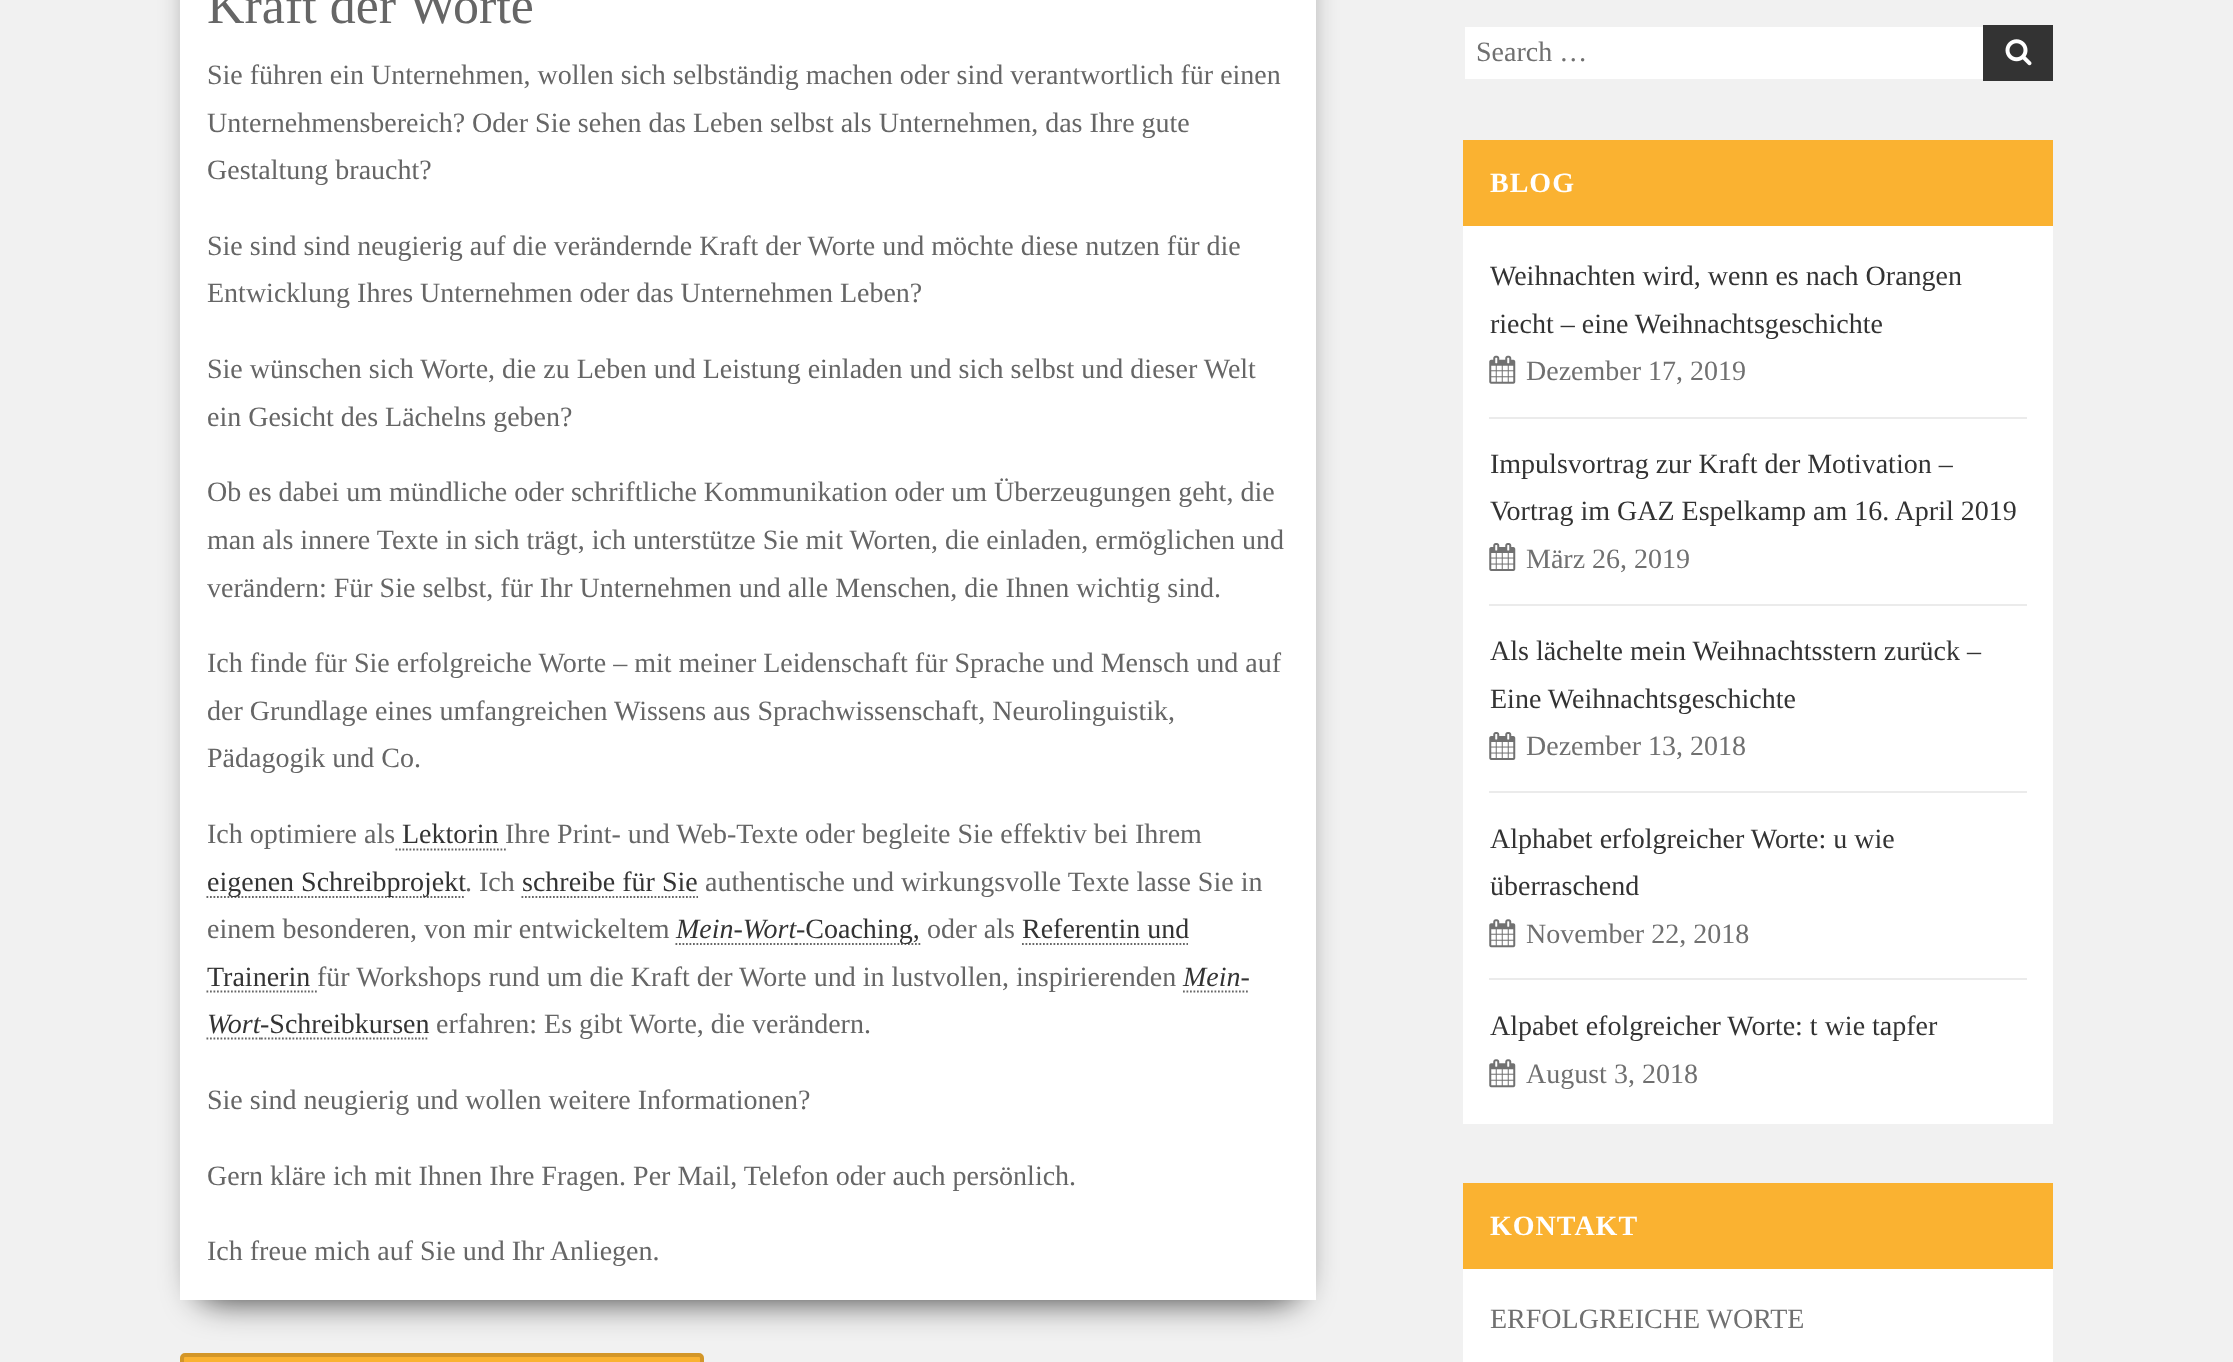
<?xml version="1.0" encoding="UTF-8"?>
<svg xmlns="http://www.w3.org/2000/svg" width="2233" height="1362">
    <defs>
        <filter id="blur1" x="-50%" y="-200%" width="200%" height="500%"><feGaussianBlur stdDeviation="17.5"/></filter>
    </defs>
    <rect width="100%" height="100%" fill="#F1F1F1"/>
    <rect x="198" y="-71" width="1101" height="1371" rx="18" fill="#000000" fill-opacity="0.8" filter="url(#blur1)"/>
    <rect x="180" y="0" width="1136" height="1300" fill="#FFFFFF"/>
    <text x="207" y="23" font-family="Liberation Serif" font-size="52" fill="#666666">Kraft der Worte</text>
    <text font-family="Liberation Serif" font-size="28" fill="#666666">
        <tspan x="207" y="84">Sie führen ein Unternehmen, wollen sich selbständig machen oder sind verantwortlich für einen</tspan>
        <tspan x="207" y="132">Unternehmensbereich? Oder Sie sehen das Leben selbst als Unternehmen, das Ihre gute</tspan>
        <tspan x="207" y="179">Gestaltung braucht?</tspan>
    </text>
    <text font-family="Liberation Serif" font-size="28" fill="#666666">
        <tspan x="207" y="255">Sie sind sind neugierig auf die verändernde Kraft der Worte und möchte diese nutzen für die</tspan>
        <tspan x="207" y="302">Entwicklung Ihres Unternehmen oder das Unternehmen Leben?</tspan>
    </text>
    <text font-family="Liberation Serif" font-size="28" fill="#666666">
        <tspan x="207" y="378">Sie wünschen sich Worte, die zu Leben und Leistung einladen und sich selbst und dieser Welt</tspan>
        <tspan x="207" y="426">ein Gesicht des Lächelns geben?</tspan>
    </text>
    <text font-family="Liberation Serif" font-size="28" fill="#666666">
        <tspan x="207" y="501">Ob es dabei um mündliche oder schriftliche Kommunikation oder um Überzeugungen geht, die</tspan>
        <tspan x="207" y="549">man als innere Texte in sich trägt, ich unterstütze Sie mit Worten, die einladen, ermöglichen und</tspan>
        <tspan x="207" y="597">verändern: Für Sie selbst, für Ihr Unternehmen und alle Menschen, die Ihnen wichtig sind.</tspan>
    </text>
    <text font-family="Liberation Serif" font-size="28" fill="#666666">
        <tspan x="207" y="672">Ich finde für Sie erfolgreiche Worte – mit meiner Leidenschaft für Sprache und Mensch und auf</tspan>
        <tspan x="207" y="720">der Grundlage eines umfangreichen Wissens aus Sprachwissenschaft, Neurolinguistik,</tspan>
        <tspan x="207" y="767">Pädagogik und Co.</tspan>
    </text>
    <text x="207" y="843" font-family="Liberation Serif" font-size="28" fill="#666666">Ich optimiere als</text>
    <text x="402" y="843" font-family="Liberation Serif" font-size="28" fill="#333333">Lektorin</text>
    <path d="M 395.5 849.5 H 506" fill="none" stroke="#666666" stroke-width="1.8" stroke-dasharray="1.75 1.75"/>
    <text x="505" y="843" font-family="Liberation Serif" font-size="28" fill="#666666">Ihre Print- und Web-Texte oder begleite Sie effektiv bei Ihrem</text>
    <path d="M 206.5 897 H 465.5" fill="none" stroke="#666666" stroke-width="1.8" stroke-dasharray="1.75 1.75"/>
    <text x="207" y="891" font-family="Liberation Serif" font-size="28" fill="#333333">eigenen Schreibprojekt</text>
    <text x="465" y="891" font-family="Liberation Serif" font-size="28" fill="#666666">. Ich</text>
    <text x="522" y="891" font-family="Liberation Serif" font-size="28" fill="#333333">schreibe für Sie</text>
    <path d="M 521.5 897 H 698" fill="none" stroke="#666666" stroke-width="1.8" stroke-dasharray="1.75 1.75"/>
    <text x="705" y="891" font-family="Liberation Serif" font-size="28" fill="#666666">authentische und wirkungsvolle Texte lasse Sie in</text>
    <text x="207" y="938" font-family="Liberation Serif" font-size="28" fill="#666666">einem besonderen, von mir entwickeltem</text>
    <text x="676" y="938" font-family="Liberation Serif" font-size="28" font-style="italic" fill="#333333">Mein-Wort</text>
    <path d="M 796 944 H 920.5" fill="none" stroke="#666666" stroke-width="1.8" stroke-dasharray="1.75 1.75"/>
    <text x="796" y="938" font-family="Liberation Serif" font-size="28" fill="#333333">-Coaching,</text>
    <path d="M 675.5 944 H 796" fill="none" stroke="#666666" stroke-width="1.8" stroke-dasharray="1.75 1.75"/>
    <text x="927" y="938" font-family="Liberation Serif" font-size="28" fill="#666666">oder als</text>
    <text x="1022" y="938" font-family="Liberation Serif" font-size="28" fill="#333333">Referentin und</text>
    <path d="M 1022 944 H 1188" fill="none" stroke="#666666" stroke-width="1.8" stroke-dasharray="1.75 1.75"/>
    <text x="207" y="986" font-family="Liberation Serif" font-size="28" fill="#333333">Trainerin</text>
    <path d="M 206.5 991.5 H 317" fill="none" stroke="#666666" stroke-width="1.8" stroke-dasharray="1.75 1.75"/>
    <text x="317" y="986" font-family="Liberation Serif" font-size="28" fill="#666666">für Workshops rund um die Kraft der Worte und in lustvollen, inspirierenden</text>
    <text x="1183" y="986" font-family="Liberation Serif" font-size="28" font-style="italic" fill="#333333">Mein-</text>
    <path d="M 1183 991.5 H 1249.5" fill="none" stroke="#666666" stroke-width="1.8" stroke-dasharray="1.75 1.75"/>
    <text x="207" y="1033" font-family="Liberation Serif" font-size="28" font-style="italic" fill="#333333">Wort</text>
    <path d="M 206.5 1038.5 H 261" fill="none" stroke="#666666" stroke-width="1.8" stroke-dasharray="1.75 1.75"/>
    <path d="M 261 1038.5 H 429" fill="none" stroke="#666666" stroke-width="1.8" stroke-dasharray="1.75 1.75"/>
    <text x="260" y="1033" font-family="Liberation Serif" font-size="28" fill="#333333">-Schreibkursen</text>
    <text x="436" y="1033" font-family="Liberation Serif" font-size="28" fill="#666666">erfahren: Es gibt Worte, die verändern.</text>
    <text x="207" y="1109" font-family="Liberation Serif" font-size="28" fill="#666666">Sie sind neugierig und wollen weitere Informationen?</text>
    <text x="207" y="1185" font-family="Liberation Serif" font-size="28" fill="#666666">Gern kläre ich mit Ihnen Ihre Fragen. Per Mail, Telefon oder auch persönlich.</text>
    <text x="207" y="1260" font-family="Liberation Serif" font-size="28" fill="#666666">Ich freue mich auf Sie und Ihr Anliegen.</text>
    <rect x="182" y="1355" width="520" height="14" rx="3" fill="#FAB231" stroke="#D39628" stroke-width="4"/>
    <rect x="1465" y="27" width="518" height="52" fill="#FFFFFF"/>
    <text x="1476" y="61" font-family="Liberation Serif" font-size="28" fill="#707070">Search …</text>
    <rect x="1983" y="25" width="70" height="56" fill="#333333"/>
    <image x="2005" y="39" width="27" height="27" href="img_01.png"/>
    <rect x="1463" y="226" width="590" height="898" fill="#FFFFFF"/>
    <rect x="1463" y="140" width="590" height="86" fill="#FAB231"/>
    <text x="1490" y="192" font-family="Liberation Serif" font-size="28" font-weight="700" letter-spacing="1" fill="#FFFFFF">BLOG</text>
    <text font-family="Liberation Serif" font-size="28" fill="#333333">
        <tspan x="1490" y="285">Weihnachten wird, wenn es nach Orangen</tspan>
        <tspan x="1490" y="333">riecht – eine Weihnachtsgeschichte</tspan>
    </text>
    <image x="1489" y="355" width="27" height="29" href="img_02.png"/>
    <text x="1526" y="380" font-family="Liberation Serif" font-size="28" fill="#707070">Dezember 17, 2019</text>
    <rect x="1489" y="417" width="538" height="2" fill="#EBEBEB"/>
    <text font-family="Liberation Serif" font-size="28" fill="#333333">
        <tspan x="1490" y="473">Impulsvortrag zur Kraft der Motivation –</tspan>
        <tspan x="1490" y="520">Vortrag im GAZ Espelkamp am 16. April 2019</tspan>
    </text>
    <image x="1489" y="543" width="27" height="28" href="img_03.png"/>
    <text x="1526" y="568" font-family="Liberation Serif" font-size="28" fill="#707070">März 26, 2019</text>
    <rect x="1489" y="604" width="538" height="2" fill="#EBEBEB"/>
    <text font-family="Liberation Serif" font-size="28" fill="#333333">
        <tspan x="1490" y="660">Als lächelte mein Weihnachtsstern zurück –</tspan>
        <tspan x="1490" y="708">Eine Weihnachtsgeschichte</tspan>
    </text>
    <image x="1489" y="732" width="27" height="28" href="img_03.png"/>
    <text x="1526" y="755" font-family="Liberation Serif" font-size="28" fill="#707070">Dezember 13, 2018</text>
    <rect x="1489" y="791" width="538" height="2" fill="#EBEBEB"/>
    <text font-family="Liberation Serif" font-size="28" fill="#333333">
        <tspan x="1490" y="848">Alphabet erfolgreicher Worte: u wie</tspan>
        <tspan x="1490" y="895">überraschend</tspan>
    </text>
    <image x="1489" y="919" width="27" height="29" href="img_04.png"/>
    <text x="1526" y="943" font-family="Liberation Serif" font-size="28" fill="#707070">November 22, 2018</text>
    <rect x="1489" y="978" width="538" height="2" fill="#EBEBEB"/>
    <text x="1490" y="1035" font-family="Liberation Serif" font-size="28" fill="#333333">Alpabet efolgreicher Worte: t wie tapfer</text>
    <image x="1489" y="1059" width="27" height="29" href="img_04.png"/>
    <text x="1526" y="1083" font-family="Liberation Serif" font-size="28" fill="#707070">August 3, 2018</text>
    <rect x="1463" y="1269" width="590" height="93" fill="#FFFFFF"/>
    <rect x="1463" y="1183" width="590" height="86" fill="#FAB231"/>
    <text x="1490" y="1235" font-family="Liberation Serif" font-size="28" font-weight="700" letter-spacing="1" fill="#FFFFFF">KONTAKT</text>
    <text x="1490" y="1328" font-family="Liberation Serif" font-size="28" fill="#707070">ERFOLGREICHE WORTE</text>
</svg>
